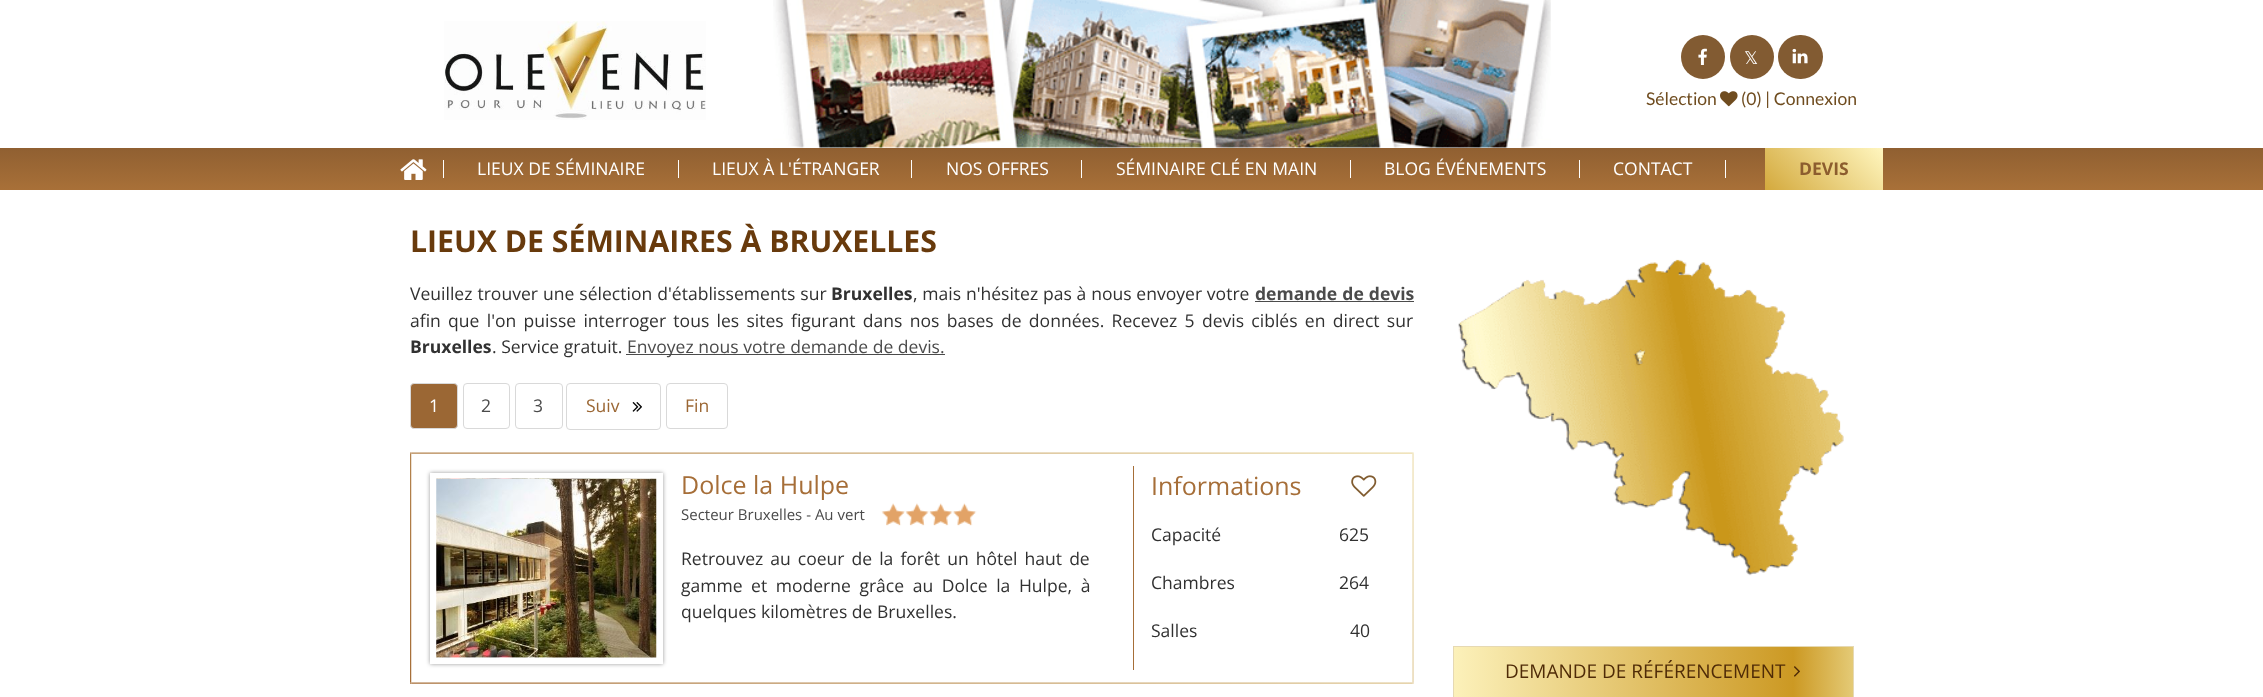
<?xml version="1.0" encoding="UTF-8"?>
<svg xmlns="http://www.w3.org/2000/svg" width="2263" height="697">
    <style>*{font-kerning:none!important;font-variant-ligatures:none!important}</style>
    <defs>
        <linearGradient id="g1" gradientUnits="userSpaceOnUse" x1="1132" y1="147" x2="1132" y2="190"><stop offset="0" stop-color="#8F5F31"/><stop offset="0.98" stop-color="#A87038"/></linearGradient>
        <linearGradient id="g2" gradientUnits="userSpaceOnUse" x1="1784" y1="209" x2="1864" y2="129"><stop offset="0.01" stop-color="#D4AA3E"/><stop offset="1" stop-color="#FFF6BF"/></linearGradient>
        <filter id="blur1" x="-50%" y="-200%" width="200%" height="500%"><feGaussianBlur stdDeviation="2"/></filter>
        <linearGradient id="g3" gradientUnits="userSpaceOnUse" x1="1454" y1="672" x2="1853" y2="672"><stop offset="0" stop-color="#FCF1BA"/><stop offset="0.85" stop-color="#CC9923"/><stop offset="1" stop-color="#E4CA76"/></linearGradient>
    </defs>
    <rect width="100%" height="100%" fill="#FFFFFF"/>
    <image x="444" y="21" width="262" height="99" href="img_01.png"/>
    <image x="773" y="0" width="778" height="148" href="img_02.png"/>
    <circle cx="1703" cy="57" r="22" fill="#825B32"/>
    <image x="1698" y="48" width="9" height="17" href="img_03.png"/>
    <circle cx="1752" cy="57" r="22" fill="#825B32"/>
    <text x="1744" y="64" font-family="DejaVu Sans" font-size="17.55" fill="#FFFFFF">𝕏</text>
    <rect x="1778" y="35" width="45" height="44" rx="22" fill="#825B32"/>
    <image x="1792" y="48" width="16" height="16" href="img_04.png"/>
    <text x="1646" y="105" font-family="Lato" font-size="17.55" fill="#6F4C1F">Sélection</text>
    <image x="1720" y="91" width="18" height="16" href="img_05.png"/>
    <text x="1741" y="105" font-family="Lato" font-size="17.55" fill="#6F4C1F">(0) | Connexion</text>
    <rect x="0" y="148" width="2263" height="42" fill="url(#g1)"/>
    <image x="400" y="159" width="27" height="21" href="img_06.png"/>
    <rect x="443" y="160" width="1" height="18" fill="#FFFFFF"/>
    <text x="477" y="175" font-family="Open Sans" font-size="17.55" fill="#FFFFFF">LIEUX DE SÉMINAIRE</text>
    <rect x="678" y="160" width="1" height="18" fill="#FFFFFF"/>
    <text x="712" y="175" font-family="Open Sans" font-size="17.55" fill="#FFFFFF">LIEUX À L'ÉTRANGER</text>
    <rect x="911" y="160" width="1" height="18" fill="#FFFFFF"/>
    <text x="946" y="175" font-family="Open Sans" font-size="17.55" fill="#FFFFFF">NOS OFFRES</text>
    <rect x="1081" y="160" width="1" height="18" fill="#FFFFFF"/>
    <text x="1116" y="175" font-family="Open Sans" font-size="17.55" fill="#FFFFFF">SÉMINAIRE CLÉ EN MAIN</text>
    <rect x="1350" y="160" width="1" height="18" fill="#FFFFFF"/>
    <text x="1384" y="175" font-family="Open Sans" font-size="17.55" fill="#FFFFFF">BLOG ÉVÉNEMENTS</text>
    <rect x="1579" y="160" width="1" height="18" fill="#FFFFFF"/>
    <text x="1613" y="175" font-family="Open Sans" font-size="17.55" fill="#FFFFFF">CONTACT</text>
    <rect x="1725" y="160" width="1" height="18" fill="#FFFFFF"/>
    <rect x="1765" y="148" width="118" height="42" fill="url(#g2)"/>
    <text x="1799" y="175" font-family="Open Sans" font-size="17.55" font-weight="700" fill="#8C5D2E">DEVIS</text>
    <text x="410" y="252" font-family="Open Sans" font-size="30.2" font-weight="700" fill="#683A0C">LIEUX DE SÉMINAIRES À BRUXELLES</text>
    <text x="410" y="300" word-spacing="0.5" font-family="Open Sans" font-size="17.55" fill="#313131">Veuillez trouver une sélection d'établissements sur</text>
    <text x="831" y="300" font-family="Open Sans" font-size="17.55" font-weight="700" fill="#313131">Bruxelles</text>
    <text x="913" y="300" word-spacing="0.25" font-family="Open Sans" font-size="17.55" fill="#313131">, mais n'hésitez pas à nous envoyer votre</text>
    <text x="1255" y="300" word-spacing="0.5" font-family="Open Sans" font-size="17.55" font-weight="700" fill="#4B4B4B">demande de devis</text>
    <rect x="1255" y="301" width="159" height="1" fill="#4B4B4B"/>
    <text x="410" y="327" word-spacing="2.75" font-family="Open Sans" font-size="17.55" fill="#313131">afin que l'on puisse interroger tous les sites figurant dans nos bases de données. Recevez 5 devis ciblés en direct sur</text>
    <text x="410" y="353" font-family="Open Sans" font-size="17.55" font-weight="700" fill="#313131">Bruxelles</text>
    <text x="492" y="353" font-family="Open Sans" font-size="17.55" fill="#313131">. Service gratuit.</text>
    <rect x="626" y="354" width="319" height="1" fill="#4B4B4B"/>
    <text x="627" y="353" font-family="Open Sans" font-size="17.55" fill="#4B4B4B">Envoyez nous votre demande de devis.</text>
    <rect x="410.5" y="383.5" width="47" height="45" rx="3.5" fill="#9B6734" stroke="#D9D9D9"/>
    <text x="429" y="412" font-family="Open Sans" font-size="17.55" fill="#FFFFFF">1</text>
    <rect x="463.5" y="383.5" width="46" height="45" rx="3.5" fill="none" stroke="#D9D9D9"/>
    <text x="481" y="412" font-family="Open Sans" font-size="17.55" fill="#4B4B4B">2</text>
    <rect x="515.5" y="383.5" width="47" height="45" rx="3.5" fill="none" stroke="#D9D9D9"/>
    <text x="533" y="412" font-family="Open Sans" font-size="17.55" fill="#4B4B4B">3</text>
    <rect x="566.5" y="383.5" width="94" height="46" rx="3.5" fill="none" stroke="#D9D9D9"/>
    <text x="586" y="412" font-family="Open Sans" font-size="17.55" fill="#9B6734">Suiv</text>
    <image x="632" y="402" width="10" height="10" href="img_07.png"/>
    <rect x="666.5" y="383.5" width="61" height="45" rx="3.5" fill="none" stroke="#D9D9D9"/>
    <text x="685" y="412" font-family="Open Sans" font-size="17.55" fill="#9B6734">Fin</text>
    <image x="410" y="452" width="1004" height="232" href="img_08.png"/>
    <rect x="430" y="473" width="233" height="191" fill="#000000" fill-opacity="0.4" filter="url(#blur1)"/>
    <rect x="430" y="473" width="233" height="191" fill="#FFFFFF"/>
    <image x="436" y="478" width="221" height="180" href="img_09.png"/>
    <rect x="1133" y="466" width="1" height="204" fill="#A66E38"/>
    <text x="681" y="494" font-family="Open Sans" font-size="25" fill="#A66E38">Dolce la Hulpe</text>
    <text x="681" y="520" font-family="Open Sans" font-size="15" fill="#4B4B4B">Secteur Bruxelles - Au vert</text>
    <image x="881" y="503" width="24" height="23" href="img_10.png"/>
    <image x="905" y="503" width="24" height="23" href="img_11.png"/>
    <image x="929" y="503" width="24" height="23" href="img_12.png"/>
    <image x="953" y="503" width="24" height="23" href="img_13.png"/>
    <text font-family="Open Sans" font-size="17.55" fill="#313131">
        <tspan x="681" y="565" word-spacing="2.5">Retrouvez au coeur de la forêt un hôtel haut de</tspan>
        <tspan x="681" y="592" word-spacing="4">gamme et moderne grâce au Dolce la Hulpe, à</tspan>
        <tspan x="681" y="618">quelques kilomètres de Bruxelles.</tspan>
    </text>
    <text x="1151" y="495" font-family="Open Sans" font-size="25" fill="#A66E38">Informations</text>
    <image x="1351" y="475" width="26" height="22" href="img_14.png"/>
    <text x="1151" y="541" font-family="Open Sans" font-size="17.55" fill="#313131">Capacité</text>
    <text x="1339" y="541" font-family="Open Sans" font-size="17.55" fill="#313131">625</text>
    <text x="1151" y="589" font-family="Open Sans" font-size="17.55" fill="#313131">Chambres</text>
    <text x="1339" y="589" font-family="Open Sans" font-size="17.55" fill="#313131">264</text>
    <text x="1151" y="637" font-family="Open Sans" font-size="17.55" fill="#313131">Salles</text>
    <text x="1350" y="637" font-family="Open Sans" font-size="17.55" fill="#313131">40</text>
    <image x="1458" y="259" width="386" height="317" href="img_15.png"/>
    <rect x="1454" y="647" width="399" height="50" fill="url(#g3)"/>
    <rect x="1453.5" y="646.5" width="400" height="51" fill="none" stroke="#E6D9B3"/>
    <text x="1505" y="678" font-family="Open Sans" font-size="19" fill="#4F2B07">DEMANDE DE RÉFÉRENCEMENT</text>
    <image x="1794" y="666" width="6" height="11" href="img_16.png"/>
</svg>
